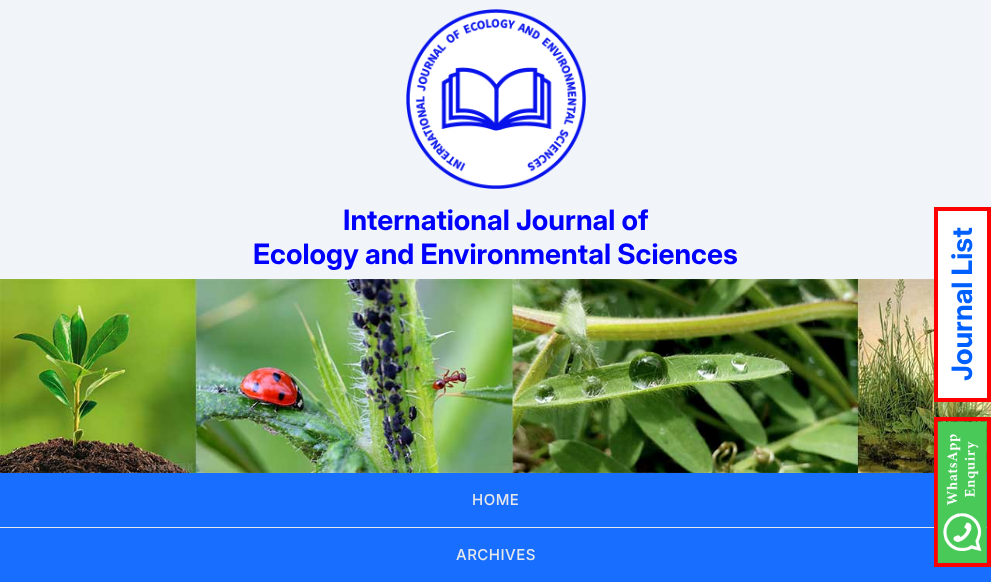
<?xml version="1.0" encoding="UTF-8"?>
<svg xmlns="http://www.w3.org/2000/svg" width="991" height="582">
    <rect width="100%" height="100%" fill="#F1F5F9"/>
    <image x="406" y="9" width="180" height="180" href="img_01.png"/>
    <text x="343" y="230" font-family="Inter" font-size="28.1" font-weight="700" fill="#0000FF">International Journal of</text>
    <text x="253" y="264" font-family="Inter" font-size="28.1" font-weight="700" fill="#0000FF">Ecology and Environmental Sciences</text>
    <image x="0" y="279" width="991" height="194" href="img_02.png"/>
    <rect x="0" y="473" width="991" height="109" fill="#186EFE"/>
    <rect x="0" y="527" width="991" height="1" fill="#E5E7EB"/>
    <text x="472" y="505" font-family="Inter" font-size="15" font-weight="500" letter-spacing="0.5" fill="#E5E7EB">HOME</text>
    <text x="456" y="560" font-family="Inter" font-size="15" font-weight="500" letter-spacing="0.5" fill="#E5E7EB">ARCHIVES</text>
    <rect x="938" y="211" width="49" height="187" fill="#FFFFFF"/>
    <path d="M 936 400 V 209 H 989 V 400 Z" fill="none" stroke="#FF0000" stroke-width="4"/>
    <text x="972" y="381" transform="rotate(-90 972 381)" font-family="Inter" font-size="28.1" font-weight="700" fill="#005FFF">Journal List</text>
    <path d="M 936 565 V 419 H 989 V 565 Z" fill="none" stroke="#FF0000" stroke-width="4"/>
    <image x="937" y="421" width="50" height="143" href="img_03.png"/>
</svg>
